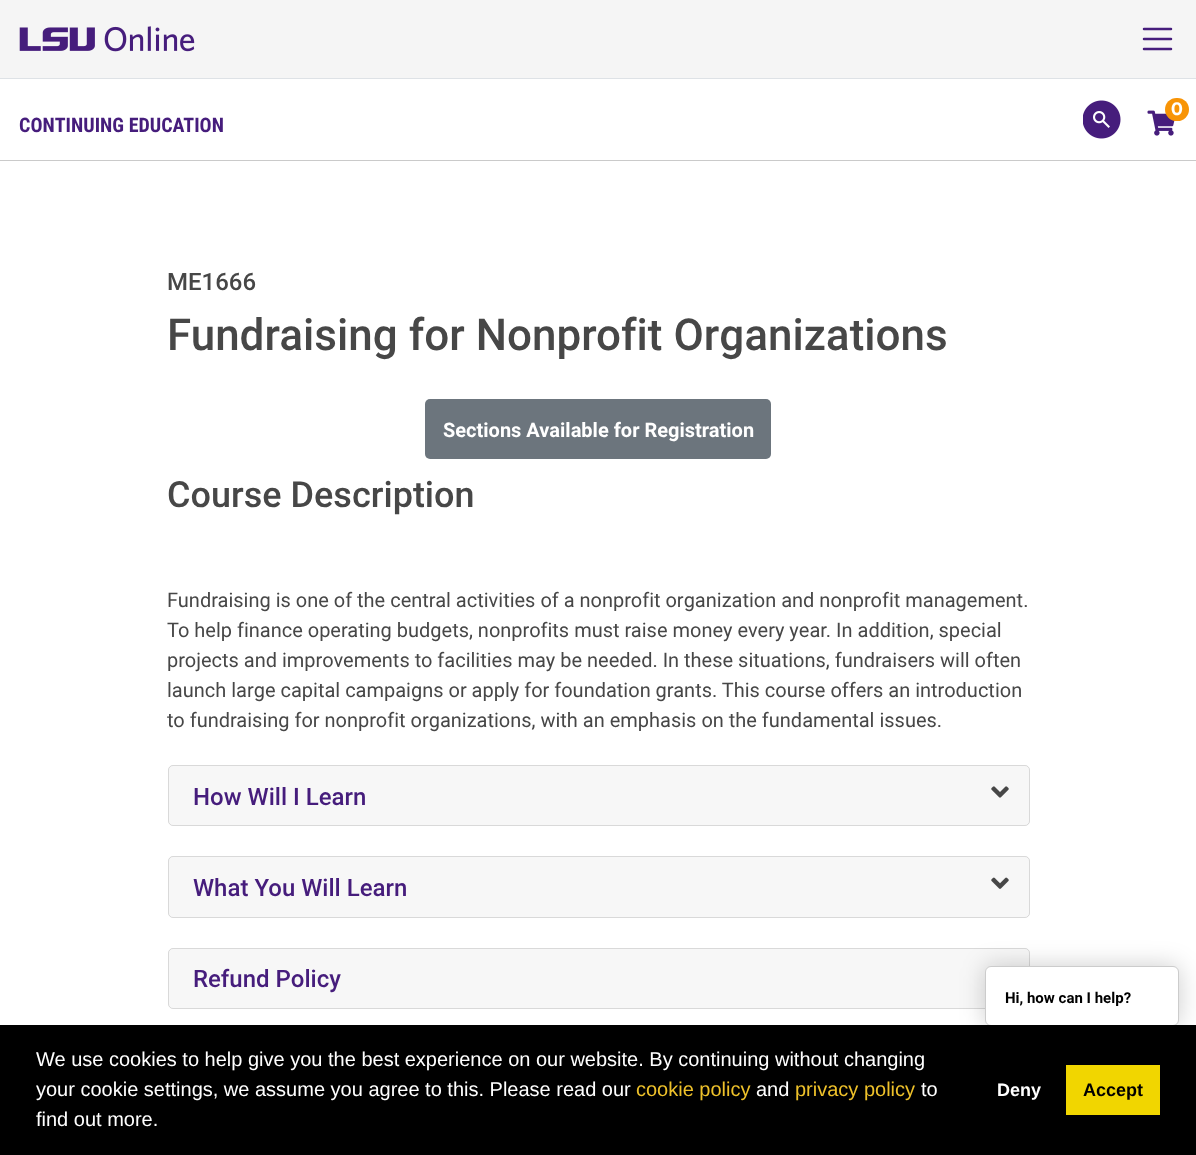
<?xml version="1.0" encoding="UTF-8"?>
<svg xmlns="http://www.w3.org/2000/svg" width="1196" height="1155">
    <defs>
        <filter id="blur1" x="-50%" y="-200%" width="200%" height="500%"><feGaussianBlur stdDeviation="12.5"/></filter>
    </defs>
    <rect width="100%" height="100%" fill="#FFFFFF"/>
    <rect x="0" y="0" width="1196" height="78" fill="#F5F5F5"/>
    <image x="19" y="26" width="176" height="26" href="img_01.png"/>
    <path d="M 1144 29 H 1171 M 1144 39 H 1171 M 1144 49 H 1171" fill="none" stroke="#461D7C" stroke-width="2.5" stroke-linecap="round"/>
    <rect x="0" y="78" width="1196" height="1" fill="#DEE2E6"/>
    <rect x="0" y="160" width="1196" height="1" fill="#CACACA"/>
    <image x="1083" y="100" width="38" height="39" href="img_02.png"/>
    <image x="1147" y="110" width="28" height="26" href="img_03.png"/>
    <rect x="1165" y="98" width="24" height="23" rx="11.5" fill="#F89406"/>
    <text x="1171" y="115" font-family="Proxima Nova" font-size="19" font-weight="700" fill="#FFFFFF">0</text>
    <text x="19" y="132" font-family="Roboto Condensed" font-size="20" font-weight="700" fill="#461D7C">CONTINUING EDUCATION</text>
    <text x="167" y="290" font-family="Roboto" font-size="24" font-weight="500" fill="#474747">ME1666</text>
    <text x="167" y="350" font-family="Roboto" font-size="44" font-weight="500" fill="#474747">Fundraising for Nonprofit Organizations</text>
    <rect x="425" y="399" width="346" height="60" rx="5" fill="#6C757D"/>
    <text x="443" y="437" font-family="Roboto" font-size="20" font-weight="700" fill="#FFFFFF">Sections Available for Registration</text>
    <text x="167" y="507" font-family="Roboto" font-size="36" font-weight="500" fill="#474747">Course Description</text>
    <text font-family="Roboto" font-size="20" fill="#474747">
        <tspan x="167" y="607">Fundraising is one of the central activities of a nonprofit organization and nonprofit management.</tspan>
        <tspan x="167" y="637">To help finance operating budgets, nonprofits must raise money every year. In addition, special</tspan>
        <tspan x="167" y="667">projects and improvements to facilities may be needed. In these situations, fundraisers will often</tspan>
        <tspan x="167" y="697">launch large capital campaigns or apply for foundation grants. This course offers an introduction</tspan>
        <tspan x="167" y="727">to fundraising for nonprofit organizations, with an emphasis on the fundamental issues.</tspan>
    </text>
    <rect x="168" y="765" width="862" height="61" rx="5" fill="#F7F7F7"/>
    <rect x="168.5" y="765.5" width="861" height="60" rx="4.5" fill="none" stroke="#000000" stroke-opacity="0.12"/>
    <text x="193" y="805" font-family="Roboto" font-size="24" font-weight="500" fill="#461D7C">How Will I Learn</text>
    <image x="991" y="786" width="18" height="12" href="img_04.png"/>
    <rect x="168" y="856" width="862" height="62" rx="5" fill="#F7F7F7"/>
    <rect x="168.5" y="856.5" width="861" height="61" rx="4.5" fill="none" stroke="#000000" stroke-opacity="0.12"/>
    <text x="193" y="896" font-family="Roboto" font-size="24" font-weight="500" fill="#461D7C">What You Will Learn</text>
    <image x="991" y="877" width="18" height="12" href="img_05.png"/>
    <rect x="168" y="948" width="862" height="61" rx="5" fill="#F7F7F7"/>
    <rect x="168.5" y="948.5" width="861" height="60" rx="4.5" fill="none" stroke="#000000" stroke-opacity="0.12"/>
    <text x="193" y="987" font-family="Roboto" font-size="24" font-weight="500" fill="#461D7C">Refund Policy</text>
    <rect x="985" y="966" width="194" height="60" rx="6" fill="#000000" fill-opacity="0.2" filter="url(#blur1)"/>
    <rect x="985.5" y="966.5" width="193" height="59" rx="5.5" fill="#FFFFFF" stroke="#CCCCCC"/>
    <text x="1005" y="1003" font-family="Roboto" font-size="15" font-weight="700" fill="#000000">Hi, how can I help?</text>
    <rect x="0" y="1025" width="1196" height="130" fill="#000000"/>
    <text font-family="Liberation Sans" font-size="20" fill="#FFFFFF">
        <tspan x="36" y="1066">We use cookies to help give you the best experience on our website. By continuing without changing</tspan>
        <tspan x="36" y="1096">your cookie settings, we assume you agree to this. Please read our</tspan>
    </text>
    <text x="636" y="1096" font-family="Liberation Sans" font-size="20" fill="#EEC12A">cookie policy</text>
    <text x="756" y="1096" font-family="Liberation Sans" font-size="20" fill="#FFFFFF">and</text>
    <text x="795" y="1096" font-family="Liberation Sans" font-size="20" fill="#EEC12A">privacy policy</text>
    <text x="921" y="1096" font-family="Liberation Sans" font-size="20" fill="#FFFFFF">to</text>
    <text x="36" y="1126" font-family="Liberation Sans" font-size="20" fill="#FFFFFF">find out more.</text>
    <text x="997" y="1096" font-family="Liberation Sans" font-size="18" font-weight="700" fill="#FFFFFF">Deny</text>
    <rect x="1066" y="1065" width="94" height="50" fill="#F1D600"/>
    <text x="1083" y="1096" font-family="Liberation Sans" font-size="18" font-weight="700" fill="#000000">Accept</text>
</svg>
